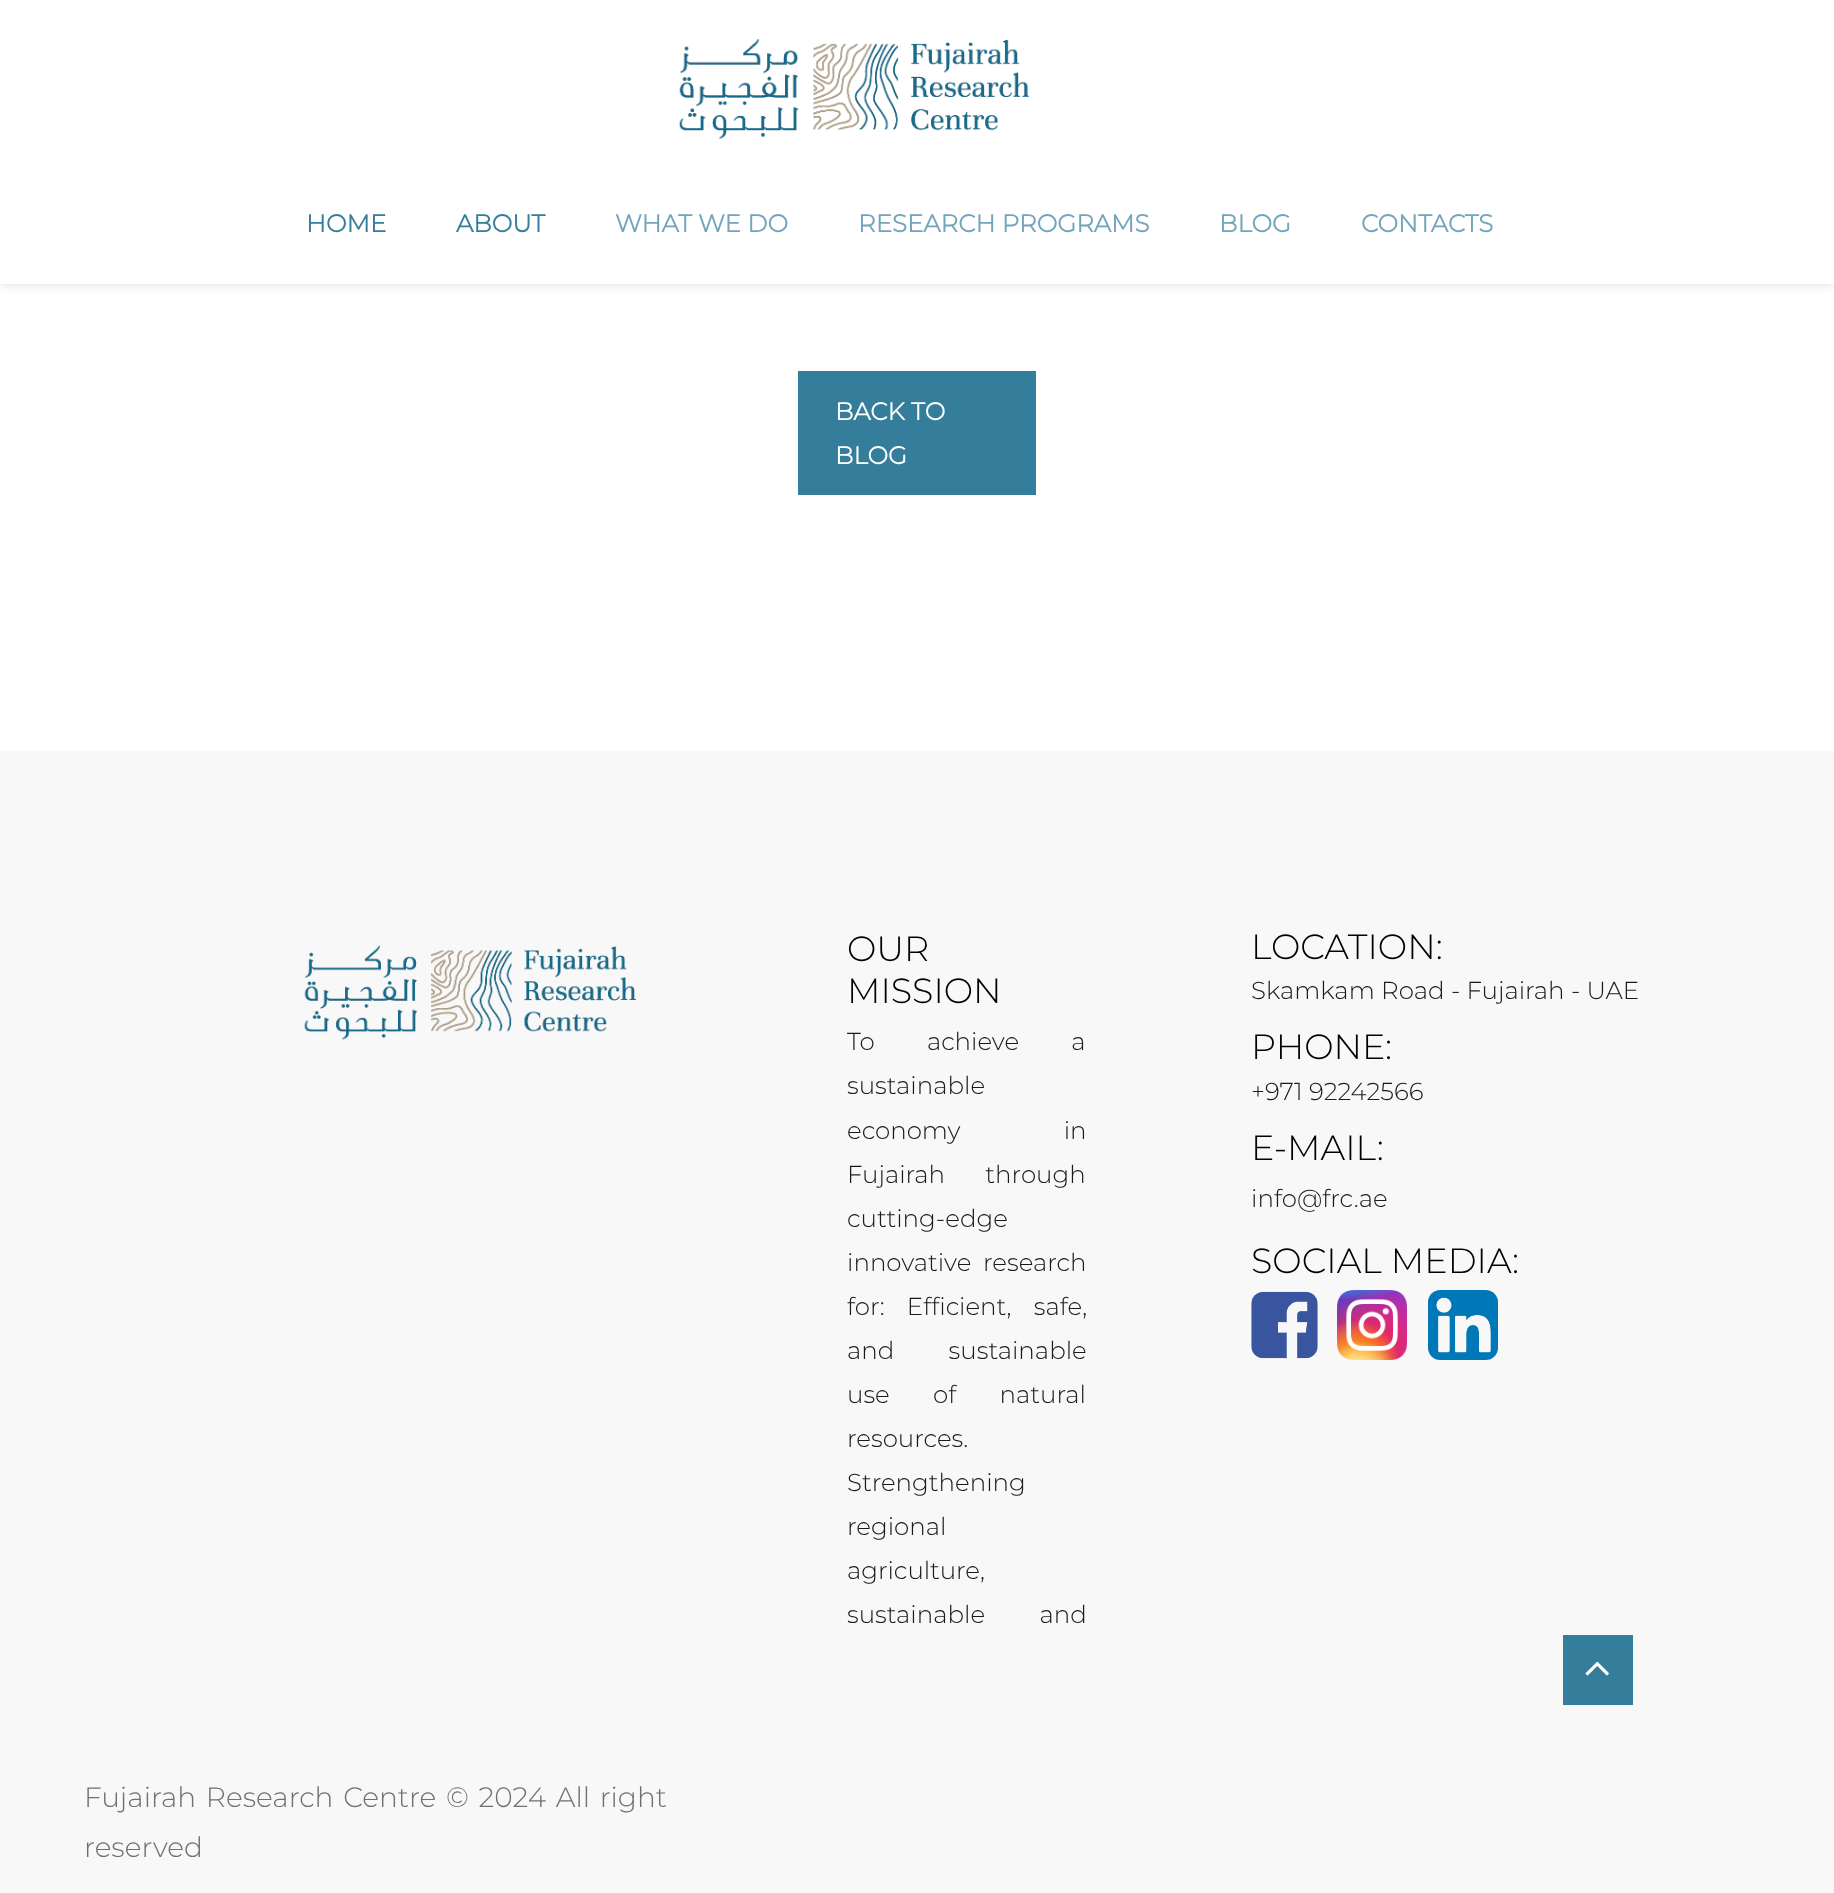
<?xml version="1.0" encoding="UTF-8"?>
<svg xmlns="http://www.w3.org/2000/svg" width="1834" height="1893">
    <defs>
        <filter id="blur1" x="-50%" y="-200%" width="200%" height="500%"><feGaussianBlur stdDeviation="6"/></filter>
    </defs>
    <rect width="100%" height="100%" fill="#FFFFFF"/>
    <rect x="0" y="0" width="1834" height="284" fill="#DDDDDD" filter="url(#blur1)"/>
    <rect x="0" y="0" width="1834" height="284" fill="#FFFFFF"/>
    <image x="679" y="39" width="351" height="100" href="img_01.png"/>
    <text x="306" y="232" font-family="Montserrat" font-size="24.5" font-weight="700" fill="#347E9B">HOME</text>
    <text x="456" y="232" font-family="Montserrat" font-size="24.5" font-weight="700" fill="#347E9B">ABOUT</text>
    <text x="615" y="232" font-family="Montserrat" font-size="24.5" font-weight="700" fill="#72A5BA">WHAT WE DO</text>
    <text x="858" y="232" font-family="Montserrat" font-size="24.5" font-weight="700" fill="#72A5BA">RESEARCH PROGRAMS</text>
    <text x="1219" y="232" font-family="Montserrat" font-size="24.5" font-weight="700" fill="#72A5BA">BLOG</text>
    <text x="1361" y="232" font-family="Montserrat" font-size="24.5" font-weight="700" fill="#72A5BA">CONTACTS</text>
    <rect x="798" y="371" width="238" height="124" fill="#347E9B"/>
    <text font-family="Montserrat" font-size="24.5" font-weight="700" fill="#FFFFFF">
        <tspan x="835" y="420">BACK TO</tspan>
        <tspan x="835" y="464">BLOG</tspan>
    </text>
    <rect x="0" y="751" width="1834" height="1142" fill="#F8F8F8"/>
    <image x="304" y="945" width="332" height="95" href="img_02.png"/>
    <text font-family="Montserrat" font-size="35" font-weight="100" fill="#000000">
        <tspan x="847" y="961">OUR</tspan>
        <tspan x="847" y="1003">MISSION</tspan>
    </text>
    <text font-family="Montserrat" font-size="24.5" font-weight="100" fill="#1A1A1A">
        <tspan x="847" y="1050" word-spacing="46">To achieve a</tspan>
        <tspan x="847" y="1094">sustainable</tspan>
        <tspan x="847" y="1139" word-spacing="97">economy in</tspan>
        <tspan x="847" y="1183" word-spacing="34">Fujairah through</tspan>
        <tspan x="847" y="1227">cutting-edge</tspan>
        <tspan x="847" y="1271">innovative</tspan>
    </text>
    <text x="983" y="1271" font-family="Montserrat" font-size="24.5" font-weight="100" fill="#1A1A1A">research</text>
    <text font-family="Montserrat" font-size="24.5" font-weight="100" fill="#1A1A1A">
        <tspan x="847" y="1315" word-spacing="16">for: Efficient, safe,</tspan>
        <tspan x="847" y="1359" word-spacing="48">and sustainable</tspan>
        <tspan x="847" y="1403" word-spacing="37">use of natural</tspan>
        <tspan x="847" y="1447">resources.</tspan>
        <tspan x="847" y="1491">Strengthening</tspan>
        <tspan x="847" y="1535">regional</tspan>
        <tspan x="847" y="1579">agriculture,</tspan>
        <tspan x="847" y="1623" word-spacing="48">sustainable and</tspan>
    </text>
    <text x="1251" y="959" font-family="Montserrat" font-size="35" font-weight="100" fill="#000000">LOCATION:</text>
    <text x="1251" y="999" font-family="Montserrat" font-size="24.5" font-weight="100" fill="#1A1A1A">Skamkam Road - Fujairah - UAE</text>
    <text x="1251" y="1059" font-family="Montserrat" font-size="35" font-weight="100" fill="#000000">PHONE:</text>
    <text x="1251" y="1100" font-family="Montserrat" font-size="24.5" font-weight="100" fill="#1A1A1A">+971 92242566</text>
    <text x="1251" y="1160" font-family="Montserrat" font-size="35" font-weight="100" fill="#000000">E-MAIL:</text>
    <text x="1251" y="1207" font-family="Montserrat" font-size="24.5" font-weight="100" fill="#1A1A1A">info@frc.ae</text>
    <text x="1251" y="1273" font-family="Montserrat" font-size="35" font-weight="100" fill="#000000">SOCIAL MEDIA:</text>
    <image x="1251" y="1291" width="67" height="68" href="img_03.png"/>
    <image x="1337" y="1290" width="70" height="70" href="img_04.png"/>
    <image x="1428" y="1290" width="70" height="70" href="img_05.png"/>
    <text font-family="Montserrat" font-size="28" font-weight="100" fill="#707070">
        <tspan x="84" y="1807" word-spacing="2.5">Fujairah Research Centre © 2024 All right</tspan>
        <tspan x="84" y="1857">reserved</tspan>
    </text>
    <rect x="1563" y="1635" width="70" height="70" fill="#347E9B"/>
    <image x="1585" y="1661" width="24" height="15" href="img_06.png"/>
</svg>
